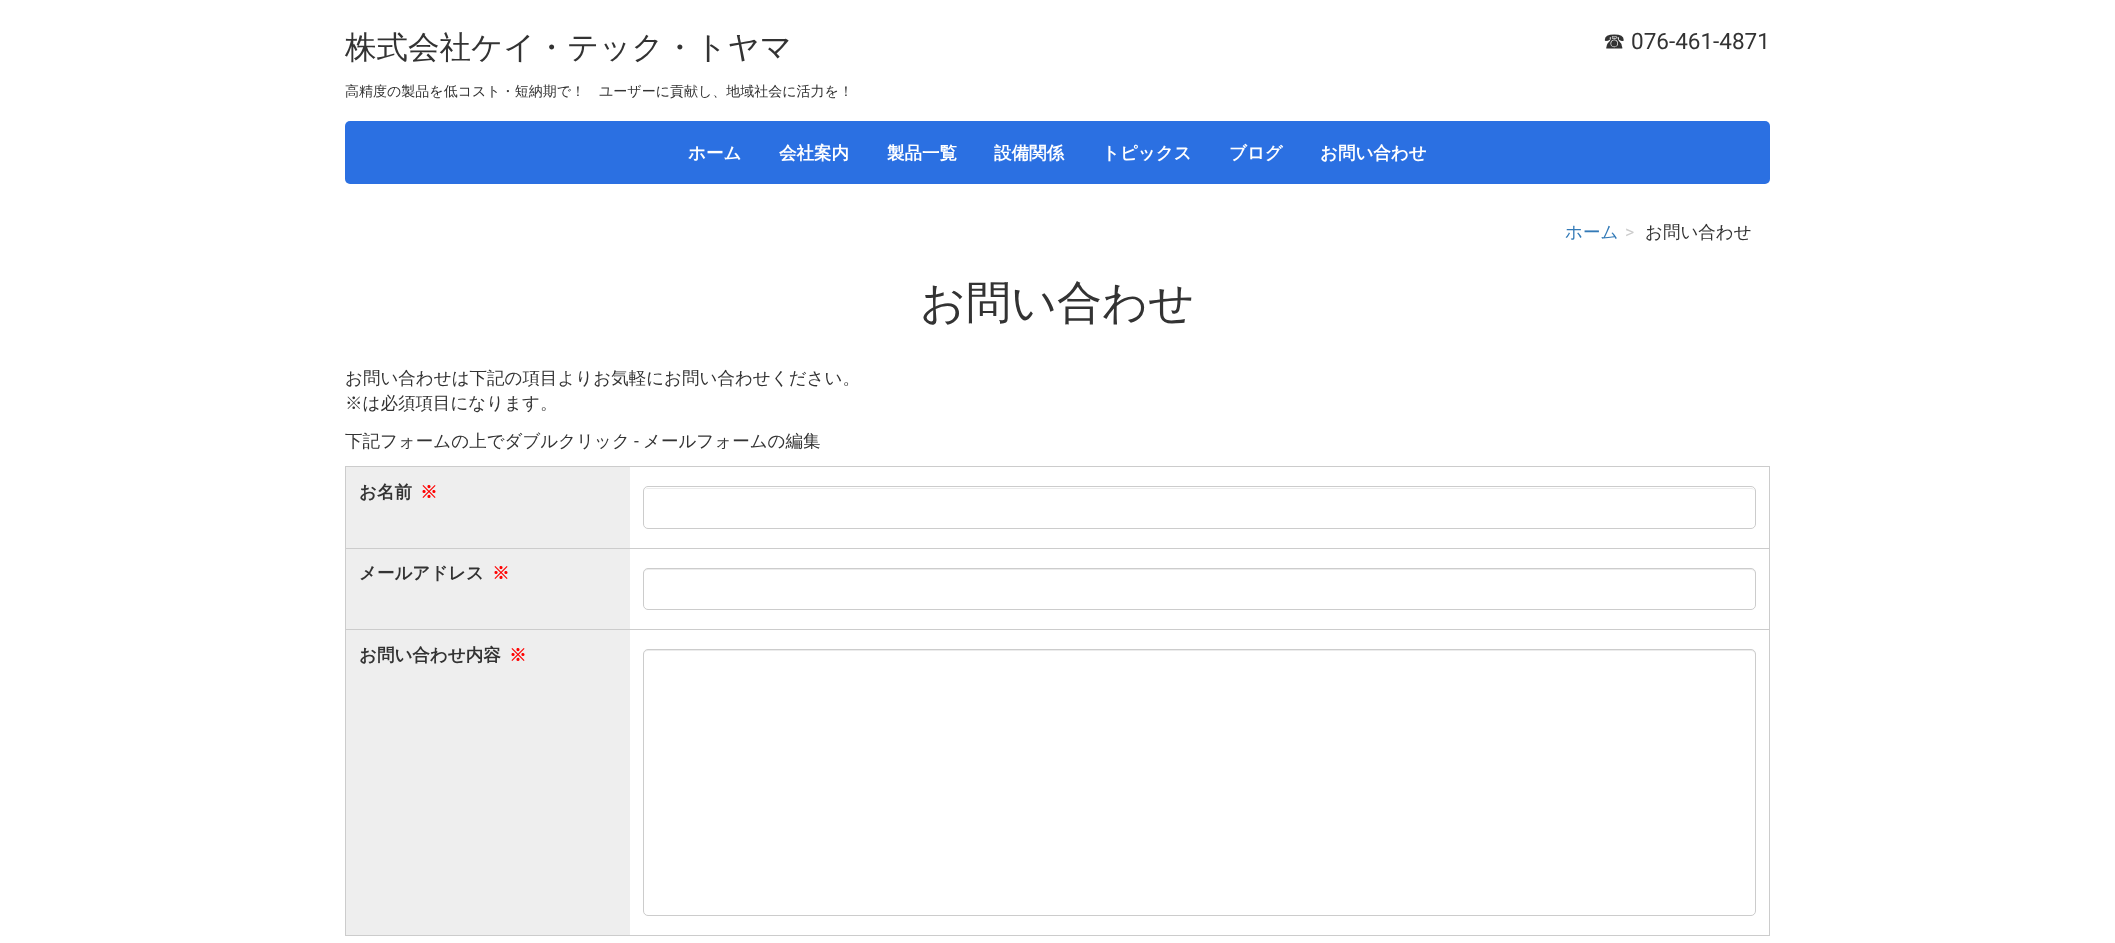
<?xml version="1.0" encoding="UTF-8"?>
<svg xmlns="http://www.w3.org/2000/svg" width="2115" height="943">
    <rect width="100%" height="100%" fill="#FFFFFF"/>
    <text x="345" y="58" font-family="WenQuanYi Zen Hei" font-size="31.5" font-weight="500" fill="#333333">株式会社ケイ・テック・トヤマ</text>
    <text x="345" y="96" font-family="WenQuanYi Zen Hei" font-size="14" font-weight="500" fill="#333333">高精度の製品を低コスト・短納期で！　ユーザーに貢献し、地域社会に活力を！</text>
    <text x="1603" y="49" font-family="WenQuanYi Zen Hei" font-size="22.5" font-weight="500" fill="#333333">☎︎</text>
    <text x="1631" y="49" font-family="Roboto" font-size="22.5" fill="#333333">076-461-4871</text>
    <rect x="345" y="121" width="1425" height="63" rx="5" fill="#2B70E2"/>
    <text x="688" y="159" font-family="WenQuanYi Zen Hei" font-size="17.5" font-weight="700" fill="#FFFFFF">ホーム</text>
    <text x="779" y="159" font-family="WenQuanYi Zen Hei" font-size="17.5" font-weight="700" fill="#FFFFFF">会社案内</text>
    <text x="887" y="159" font-family="WenQuanYi Zen Hei" font-size="17.5" font-weight="700" fill="#FFFFFF">製品一覧</text>
    <text x="994" y="159" font-family="WenQuanYi Zen Hei" font-size="17.5" font-weight="700" fill="#FFFFFF">設備関係</text>
    <text x="1102" y="159" font-family="WenQuanYi Zen Hei" font-size="17.5" font-weight="700" fill="#FFFFFF">トピックス</text>
    <text x="1229" y="159" font-family="WenQuanYi Zen Hei" font-size="17.5" font-weight="700" fill="#FFFFFF">ブログ</text>
    <text x="1320" y="159" font-family="WenQuanYi Zen Hei" font-size="17.5" font-weight="700" fill="#FFFFFF">お問い合わせ</text>
    <text x="1565" y="238" font-family="WenQuanYi Zen Hei" font-size="17.5" font-weight="500" fill="#337AB7">ホーム</text>
    <text x="1625" y="238" font-family="Roboto" font-size="17.5" fill="#CCCCCC">&gt;</text>
    <text x="1645" y="238" font-family="WenQuanYi Zen Hei" font-size="17.5" font-weight="500" fill="#333333">お問い合わせ</text>
    <text x="920" y="318" font-family="WenQuanYi Zen Hei" font-size="45" font-weight="500" fill="#333333">お問い合わせ</text>
    <text font-family="WenQuanYi Zen Hei" font-size="17.5" font-weight="500" fill="#333333">
        <tspan x="345" y="384">お問い合わせは下記の項目よりお気軽にお問い合わせください。</tspan>
        <tspan x="345" y="409">※は必須項目になります。</tspan>
    </text>
    <text x="345" y="447" font-family="WenQuanYi Zen Hei" font-size="17.5" font-weight="500" fill="#333333">下記フォームの上でダブルクリック</text>
    <text x="634" y="447" font-family="Roboto" font-size="17.5" fill="#333333">-</text>
    <text x="643" y="447" font-family="WenQuanYi Zen Hei" font-size="17.5" font-weight="500" fill="#333333">メールフォームの編集</text>
    <rect x="345" y="466" width="1425" height="1" fill="#CCCCCC"/>
    <rect x="345" y="548" width="1425" height="1" fill="#CCCCCC"/>
    <rect x="345" y="629" width="1425" height="1" fill="#CCCCCC"/>
    <rect x="1769" y="629" width="1" height="307" fill="#CCCCCC"/>
    <rect x="1769" y="548" width="1" height="82" fill="#CCCCCC"/>
    <rect x="1769" y="466" width="1" height="83" fill="#CCCCCC"/>
    <path d="M 648 489 H 1751 C 1753 489 1755 490 1755 492 C 1755 490 1753 488 1751 488 H 648 C 646 488 645 489 644 490 C 645 489 646 489 648 489 Z" fill="#ECECEC"/>
    <rect x="643.5" y="486.5" width="1112" height="42" rx="4.5" fill="none" stroke="#CCCCCC"/>
    <rect x="346" y="467" width="284" height="81" fill="#EEEEEE"/>
    <rect x="345" y="935" width="1425" height="1" fill="#CCCCCC"/>
    <rect x="345" y="629" width="1" height="307" fill="#CCCCCC"/>
    <rect x="345" y="548" width="1" height="82" fill="#CCCCCC"/>
    <rect x="345" y="466" width="1" height="83" fill="#CCCCCC"/>
    <text x="359" y="498" font-family="WenQuanYi Zen Hei" font-size="17.5" font-weight="700" fill="#333333">お名前</text>
    <text x="420" y="498" font-family="WenQuanYi Zen Hei" font-size="17.5" font-weight="700" fill="#FF0000">※</text>
    <path d="M 648 570 H 1751 C 1753 570 1755 572 1755 574 C 1755 571 1754 569 1751 569 H 648 C 645 569 644 571 644 574 C 644 572 645 570 648 570 Z" fill="#ECECEC"/>
    <rect x="643.5" y="568.5" width="1112" height="41" rx="4.5" fill="none" stroke="#CCCCCC"/>
    <rect x="346" y="549" width="284" height="80" fill="#EEEEEE"/>
    <text x="359" y="579" font-family="WenQuanYi Zen Hei" font-size="17.5" font-weight="700" fill="#333333">メールアドレス</text>
    <text x="492" y="579" font-family="WenQuanYi Zen Hei" font-size="17.5" font-weight="700" fill="#FF0000">※</text>
    <path d="M 648 651 H 1751 C 1753 651 1755 653 1755 655 C 1755 652 1754 650 1751 650 H 648 C 645 650 644 652 644 655 C 644 653 645 651 648 651 Z" fill="#ECECEC"/>
    <rect x="643.5" y="649.5" width="1112" height="266" rx="4.5" fill="none" stroke="#CCCCCC"/>
    <rect x="346" y="630" width="284" height="305" fill="#EEEEEE"/>
    <text x="359" y="661" font-family="WenQuanYi Zen Hei" font-size="17.5" font-weight="700" fill="#333333">お問い合わせ内容</text>
    <text x="509" y="661" font-family="WenQuanYi Zen Hei" font-size="17.5" font-weight="700" fill="#FF0000">※</text>
</svg>
